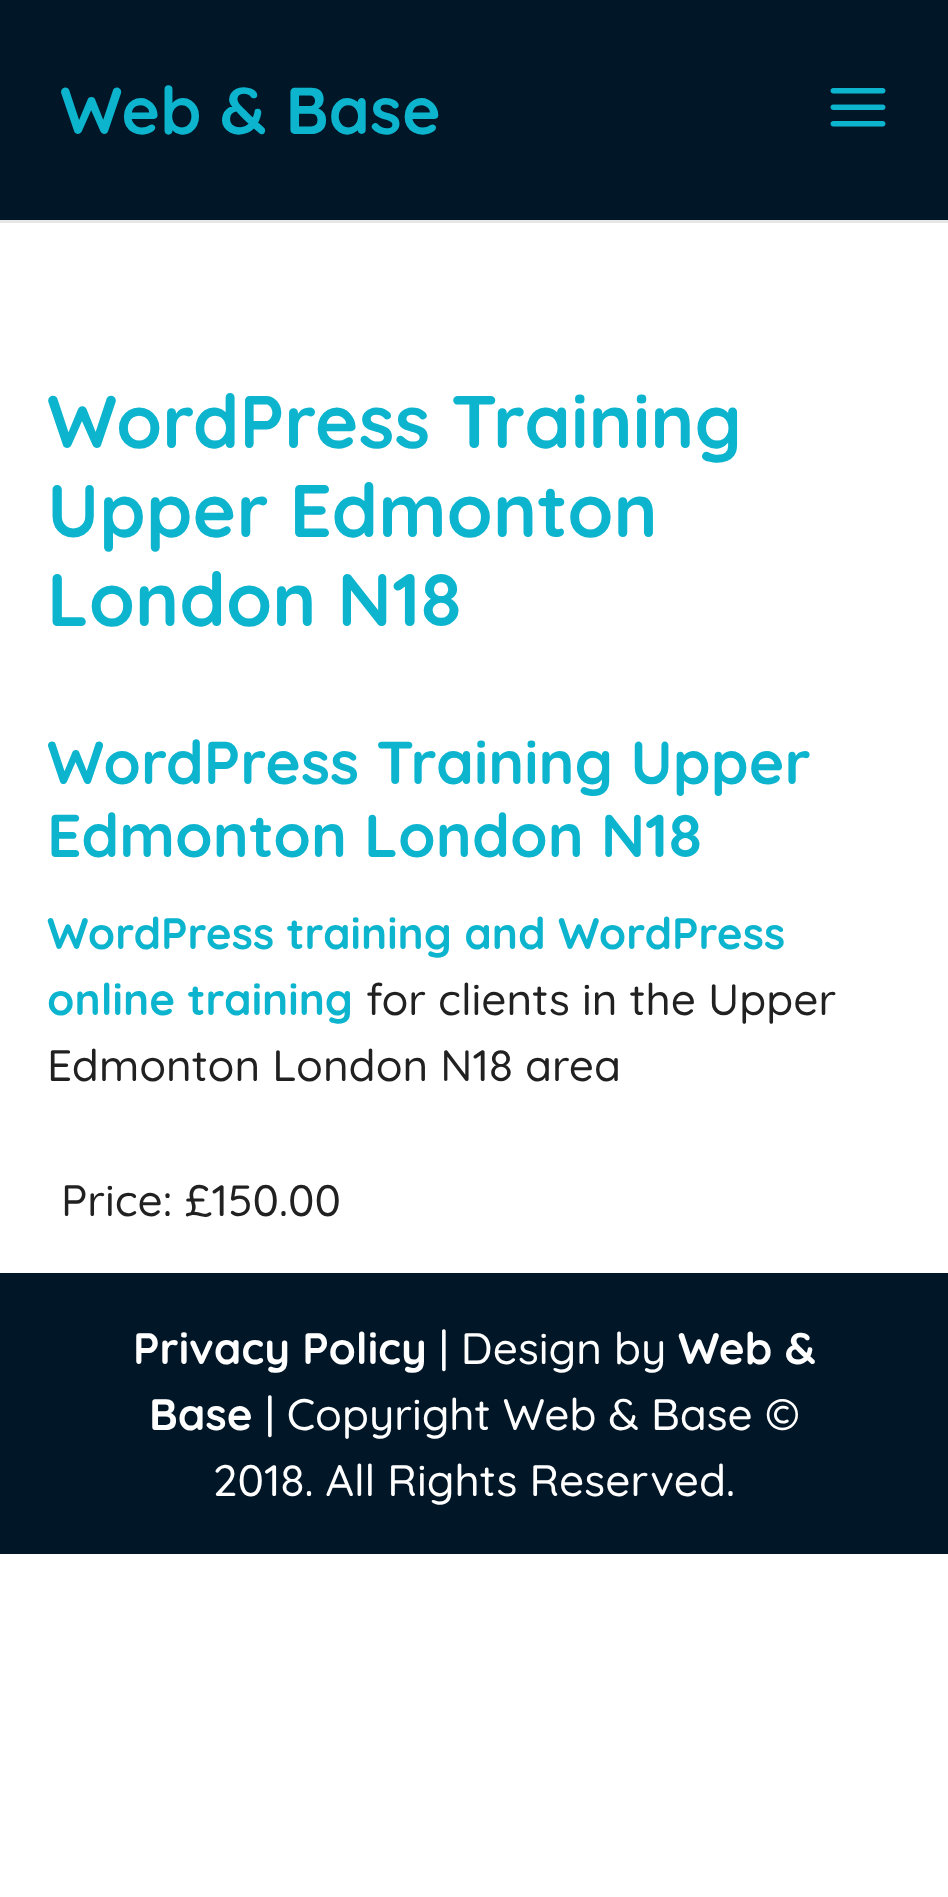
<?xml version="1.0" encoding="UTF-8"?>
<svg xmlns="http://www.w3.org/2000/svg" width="948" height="1897">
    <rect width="100%" height="100%" fill="#FFFFFF"/>
    <path d="M 0 220 V 223 H 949 V 3 V 220 Z" fill="#E6E6E6"/>
    <rect x="0" y="0" width="948" height="220" fill="#011627"/>
    <text x="60" y="134" font-family="Quicksand" font-size="66" font-weight="700" fill="#0CB4CE">Web &amp; Base</text>
    <image x="830" y="88" width="56" height="39" href="img_01.png"/>
    <text font-family="Quicksand" font-size="74.25" font-weight="700" fill="#0CB4CE">
        <tspan x="47" y="448">WordPress Training</tspan>
        <tspan x="47" y="537">Upper Edmonton</tspan>
        <tspan x="47" y="626">London N18</tspan>
    </text>
    <text font-family="Quicksand" font-size="60.5" font-weight="700" fill="#0CB4CE">
        <tspan x="47" y="784">WordPress Training Upper</tspan>
        <tspan x="47" y="857">Edmonton London N18</tspan>
    </text>
    <text font-family="Quicksand" font-size="44" font-weight="700" fill="#0CB4CE">
        <tspan x="47" y="949">WordPress training and WordPress</tspan>
        <tspan x="47" y="1015">online training</tspan>
    </text>
    <text x="366" y="1015" font-family="Quicksand" font-size="44" font-weight="500" fill="#212121">for clients in the Upper</text>
    <text x="47" y="1081" font-family="Quicksand" font-size="44" font-weight="500" fill="#212121">Edmonton London N18 area</text>
    <text x="61" y="1216" font-family="Quicksand" font-size="44" font-weight="500" fill="#212121">Price: £150.00</text>
    <rect x="0" y="1273" width="948" height="281" fill="#011627"/>
    <text x="133" y="1364" font-family="Quicksand" font-size="44" font-weight="700" fill="#FFFFFF">Privacy Policy</text>
    <text x="439" y="1364" font-family="Quicksand" font-size="44" font-weight="500" fill="#FFFFFF">| Design by</text>
    <text x="678" y="1364" font-family="Quicksand" font-size="44" font-weight="700" fill="#FFFFFF">Web &amp;</text>
    <text x="149" y="1430" font-family="Quicksand" font-size="44" font-weight="700" fill="#FFFFFF">Base</text>
    <text x="265" y="1430" font-family="Quicksand" font-size="44" font-weight="500" fill="#FFFFFF">| Copyright Web &amp; Base ©</text>
    <text x="213" y="1496" font-family="Quicksand" font-size="44" font-weight="500" fill="#FFFFFF">2018. All Rights Reserved.</text>
</svg>
